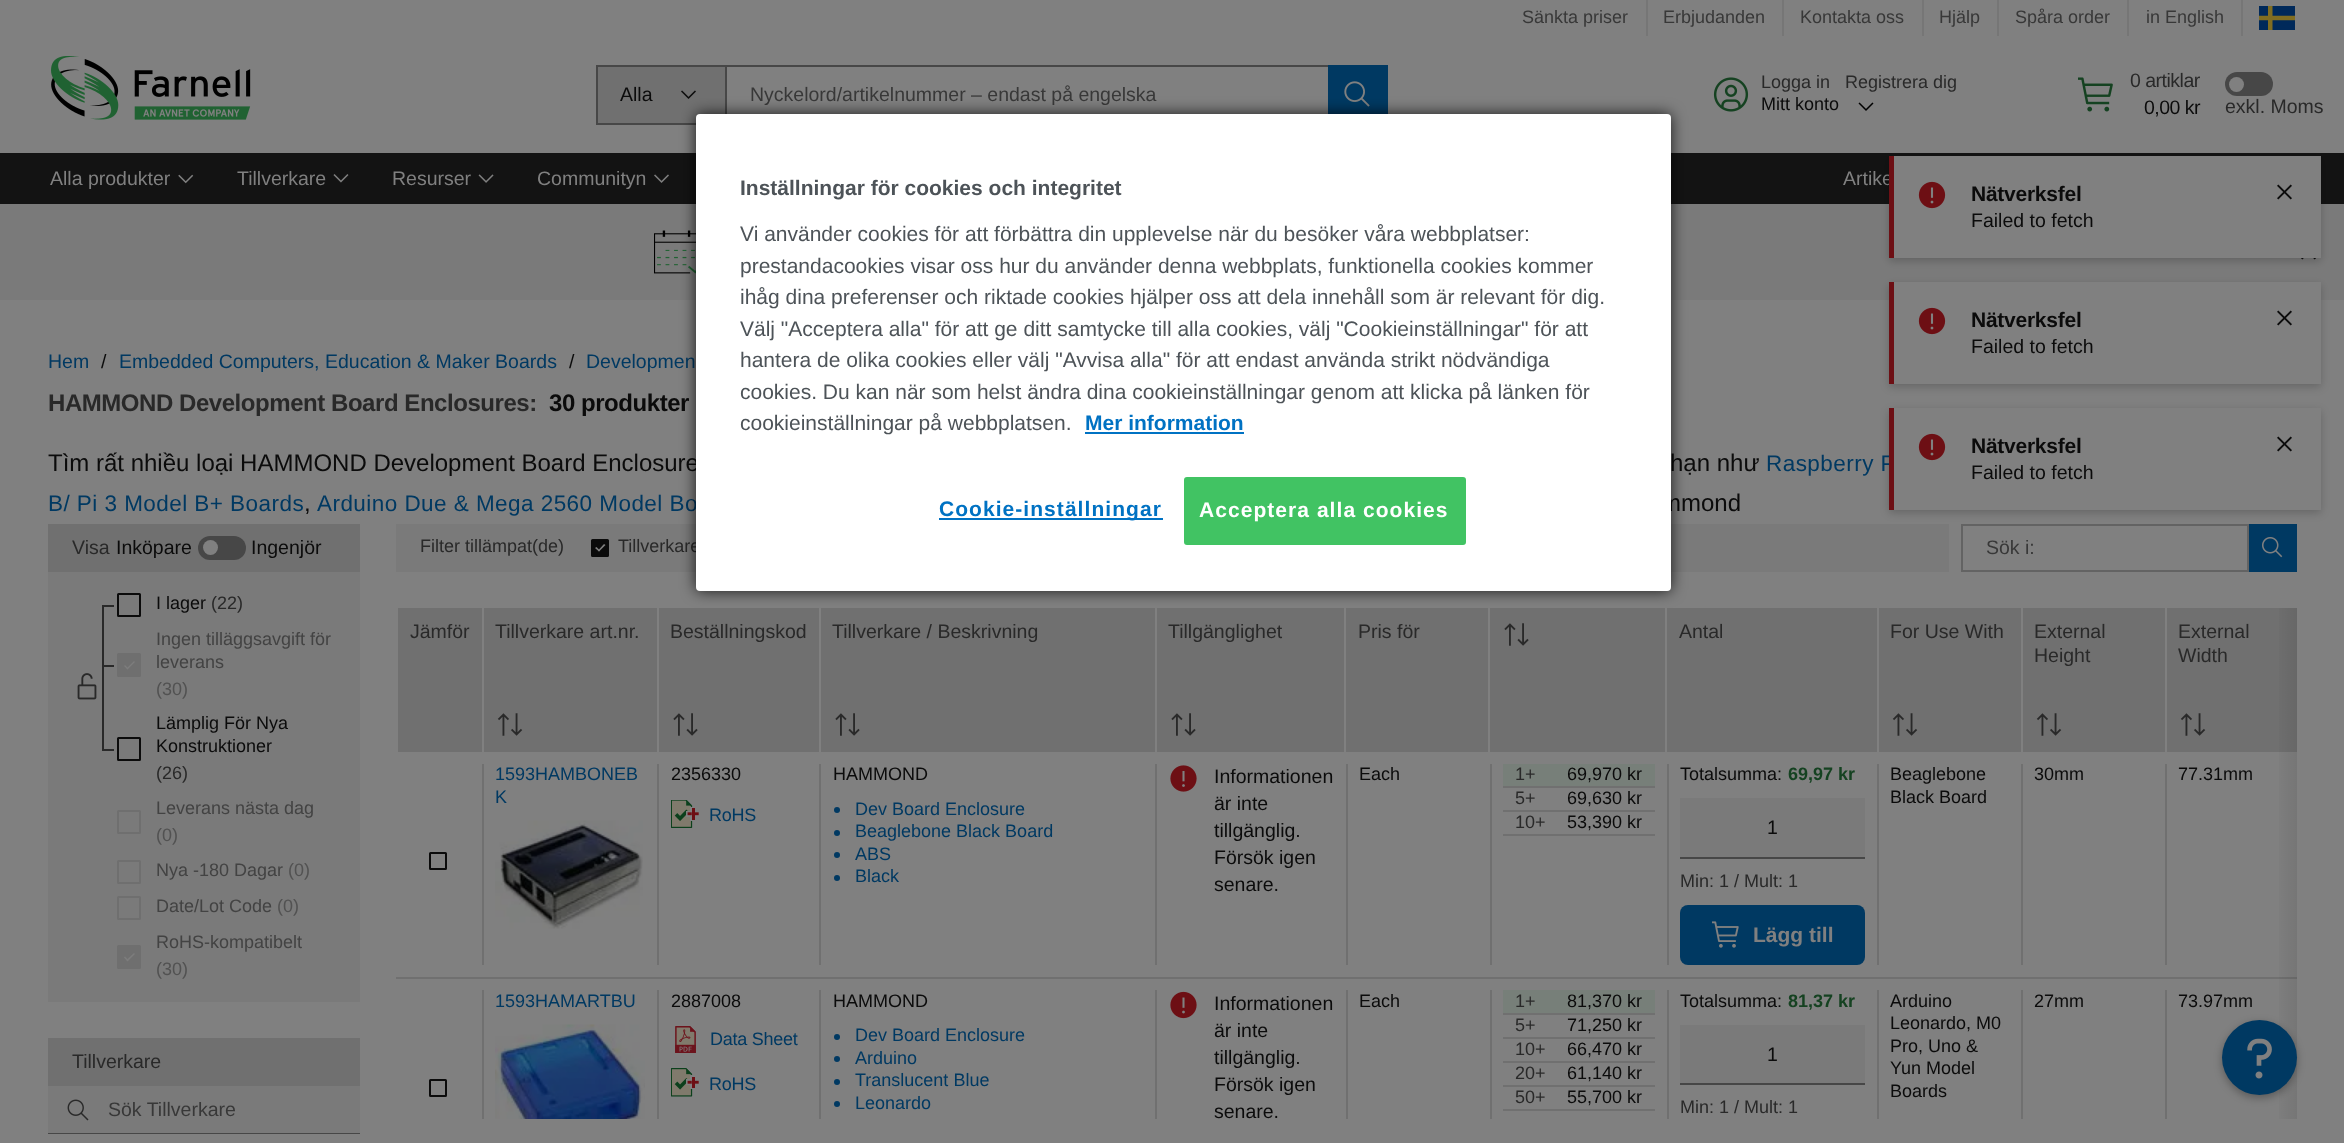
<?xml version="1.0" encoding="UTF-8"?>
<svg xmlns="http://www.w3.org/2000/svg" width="2344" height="1143">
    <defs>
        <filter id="blur1" x="-50%" y="-200%" width="200%" height="500%"><feGaussianBlur stdDeviation="4.5"/></filter>
        <linearGradient id="g1" gradientUnits="userSpaceOnUse" x1="2297" y1="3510" x2="2272" y2="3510"><stop offset="0" stop-color="#000000" stop-opacity="0.08"/><stop offset="1" stop-color="#000000" stop-opacity="0"/></linearGradient>
        <filter id="blur2" x="-50%" y="-200%" width="200%" height="500%"><feGaussianBlur stdDeviation="7.5"/></filter>
    </defs>
    <rect width="100%" height="100%" fill="#808080"/>
    <rect x="1646" y="0" width="2" height="36" fill="#767676"/>
    <text x="1522" y="23" font-family="Liberation Sans" font-size="18" fill="#383838">Sänkta priser</text>
    <rect x="1782" y="0" width="2" height="36" fill="#767676"/>
    <text x="1663" y="23" font-family="Liberation Sans" font-size="18" fill="#383838">Erbjudanden</text>
    <rect x="1922" y="0" width="2" height="36" fill="#767676"/>
    <text x="1800" y="23" font-family="Liberation Sans" font-size="18" fill="#383838">Kontakta oss</text>
    <rect x="1997" y="0" width="2" height="36" fill="#767676"/>
    <text x="1939" y="23" font-family="Liberation Sans" font-size="18" fill="#383838">Hjälp</text>
    <rect x="2127" y="0" width="2" height="36" fill="#767676"/>
    <text x="2015" y="23" font-family="Liberation Sans" font-size="18" fill="#383838">Spåra order</text>
    <rect x="2241" y="0" width="2" height="36" fill="#767676"/>
    <text x="2146" y="23" font-family="Liberation Sans" font-size="18" fill="#383838">in English</text>
    <image x="2259" y="6" width="36" height="24" href="img_01.png"/>
    <image x="51" y="56" width="200" height="64" href="img_02.png"/>
    <rect x="598" y="67" width="127" height="56" fill="#707070"/>
    <rect x="596" y="65" width="732" height="2" fill="#474747"/>
    <rect x="596" y="123" width="100" height="2" fill="#474747"/>
    <rect x="596" y="65" width="2" height="60" fill="#474747"/>
    <text x="620" y="101" font-family="Liberation Sans" font-size="19.5" fill="#0B0B0B">Alla</text>
    <image x="681" y="90" width="15" height="9" href="img_03.png"/>
    <rect x="725" y="65" width="2" height="49" fill="#474747"/>
    <text x="750" y="101" font-family="Liberation Sans" font-size="19.5" fill="#383838">Nyckelord/artikelnummer – endast på engelska</text>
    <rect x="1328" y="65" width="60" height="49" fill="#003962"/>
    <image x="1344" y="81" width="26" height="26" href="img_04.png"/>
    <image x="1713" y="77" width="36" height="35" href="img_05.png"/>
    <text x="1761" y="88" font-family="Liberation Sans" font-size="18" fill="#292929">Logga in</text>
    <text x="1845" y="88" font-family="Liberation Sans" font-size="18" fill="#292929">Registrera dig</text>
    <text x="1761" y="110" font-family="Liberation Sans" font-size="18" fill="#0B0B0B">Mitt konto</text>
    <image x="1858" y="102" width="16" height="9" href="img_06.png"/>
    <image x="2078" y="77" width="35" height="35" href="img_07.png"/>
    <text x="2130" y="87" font-family="Liberation Sans" font-size="19.5" letter-spacing="-0.5" fill="#292929">0 artiklar</text>
    <text x="2144" y="114" font-family="Liberation Sans" font-size="19.5" letter-spacing="-0.5" fill="#0B0B0B">0,00 kr</text>
    <rect x="2225" y="72" width="48" height="24" rx="12" fill="#474747"/>
    <circle cx="2236.5" cy="84.5" r="7.5" fill="#808080"/>
    <text x="2225" y="113" font-family="Liberation Sans" font-size="19.5" fill="#292929">exkl. Moms</text>
    <rect x="0" y="153" width="2344" height="51" fill="#131313"/>
    <text x="50" y="185" font-family="Liberation Sans" font-size="19.5" fill="#808080">Alla produkter</text>
    <image x="178" y="174" width="16" height="10" href="img_08.png"/>
    <text x="237" y="185" font-family="Liberation Sans" font-size="19.5" fill="#808080">Tillverkare</text>
    <image x="333" y="174" width="16" height="9" href="img_09.png"/>
    <text x="392" y="185" font-family="Liberation Sans" font-size="19.5" fill="#808080">Resurser</text>
    <image x="478" y="174" width="16" height="9" href="img_10.png"/>
    <text x="537" y="185" font-family="Liberation Sans" font-size="19.5" fill="#808080">Communityn</text>
    <image x="654" y="174" width="15" height="9" href="img_11.png"/>
    <text x="1843" y="185" font-family="Liberation Sans" font-size="19.5" fill="#808080">Artike</text>
    <rect x="0" y="204" width="2344" height="96" fill="#7A7A7A"/>
    <image x="2301" y="258" width="15" height="2" href="img_15.png"/>
    <rect x="1889" y="159" width="432" height="102" fill="#000000" fill-opacity="0.2" filter="url(#blur1)"/>
    <rect x="1894" y="156" width="427" height="102" fill="#808080"/>
    <rect x="1889" y="156" width="5" height="102" fill="#6D0F14"/>
    <image x="1918" y="181" width="28" height="28" href="img_12.png"/>
    <text x="1971" y="201" font-family="Liberation Sans" font-size="21" font-weight="700" letter-spacing="-0.25" fill="#0B0B0B">Nätverksfel</text>
    <text x="1971" y="227" font-family="Liberation Sans" font-size="19.5" fill="#0B0B0B">Failed to fetch</text>
    <image x="2277" y="184" width="15" height="16" href="img_13.png"/>
    <rect x="1889" y="285" width="432" height="102" fill="#000000" fill-opacity="0.2" filter="url(#blur1)"/>
    <rect x="1894" y="282" width="427" height="102" fill="#808080"/>
    <rect x="1889" y="282" width="5" height="102" fill="#6D0F14"/>
    <image x="1918" y="307" width="28" height="28" href="img_12.png"/>
    <text x="1971" y="327" font-family="Liberation Sans" font-size="21" font-weight="700" letter-spacing="-0.25" fill="#0B0B0B">Nätverksfel</text>
    <text x="1971" y="353" font-family="Liberation Sans" font-size="19.5" fill="#0B0B0B">Failed to fetch</text>
    <image x="2277" y="310" width="15" height="16" href="img_13.png"/>
    <rect x="396" y="524" width="1553" height="48" fill="#7A7A7A"/>
    <rect x="1962" y="525" width="286" height="46" fill="none" stroke="#636363" stroke-width="2"/>
    <rect x="2249" y="524" width="48" height="48" fill="#003962"/>
    <rect x="1889" y="411" width="432" height="102" fill="#000000" fill-opacity="0.2" filter="url(#blur1)"/>
    <text x="1766" y="471" font-family="Liberation Sans" font-size="22.5" letter-spacing="0.45" fill="#003962">Raspberry P</text>
    <rect x="1894" y="408" width="427" height="102" fill="#808080"/>
    <rect x="1889" y="408" width="5" height="102" fill="#6D0F14"/>
    <image x="1918" y="433" width="28" height="28" href="img_12.png"/>
    <text x="1971" y="453" font-family="Liberation Sans" font-size="21" font-weight="700" letter-spacing="-0.25" fill="#0B0B0B">Nätverksfel</text>
    <text x="1971" y="479" font-family="Liberation Sans" font-size="19.5" fill="#0B0B0B">Failed to fetch</text>
    <image x="2277" y="436" width="15" height="16" href="img_13.png"/>
    <image x="654" y="230" width="42" height="44" href="img_14.png"/>
    <text x="48" y="368" font-family="Liberation Sans" font-size="19.5" fill="#003962">Hem</text>
    <text x="101" y="368" font-family="Liberation Sans" font-size="19.5" fill="#0B0B0B">/</text>
    <text x="119" y="368" font-family="Liberation Sans" font-size="19.5" fill="#003962">Embedded Computers, Education &amp; Maker Boards</text>
    <text x="569" y="368" font-family="Liberation Sans" font-size="19.5" fill="#0B0B0B">/</text>
    <text x="586" y="368" font-family="Liberation Sans" font-size="19.5" fill="#003962">Developmen</text>
    <text x="48" y="411" font-family="Liberation Sans" font-size="24" font-weight="700" letter-spacing="-0.45" fill="#292929">HAMMOND Development Board Enclosures:</text>
    <text x="549" y="411" font-family="Liberation Sans" font-size="24" font-weight="700" letter-spacing="-0.45" fill="#0B0B0B">30 produkter</text>
    <text x="48" y="471" font-family="Liberation Sans" font-size="24" fill="#0B0B0B">Tìm rất nhiều loại HAMMOND Development Board Enclosure</text>
    <text x="1670" y="471" font-family="Liberation Sans" font-size="24" fill="#0B0B0B">hạn như</text>
    <text x="48" y="511" font-family="Liberation Sans" font-size="22.5" letter-spacing="0.45" fill="#003962">B/ Pi 3 Model B+ Boards</text>
    <text x="304" y="511" font-family="Liberation Sans" font-size="24" fill="#0B0B0B">,</text>
    <text x="317" y="511" font-family="Liberation Sans" font-size="22.5" letter-spacing="0.45" fill="#003962">Arduino Due &amp; Mega 2560 Model Bo</text>
    <text x="1661" y="511" font-family="Liberation Sans" font-size="24" fill="#0B0B0B">mmond</text>
    <rect x="48" y="572" width="312" height="430" fill="#7A7A7A"/>
    <rect x="48" y="524" width="312" height="48" fill="#707070"/>
    <text x="72" y="554" font-family="Liberation Sans" font-size="19.5" fill="#292929">Visa</text>
    <text x="116" y="554" font-family="Liberation Sans" font-size="19.5" fill="#0B0B0B">Inköpare</text>
    <rect x="198" y="536" width="48" height="24" rx="12" fill="#474747"/>
    <circle cx="210.5" cy="547.5" r="7.5" fill="#808080"/>
    <text x="251" y="554" font-family="Liberation Sans" font-size="19.5" fill="#0B0B0B">Ingenjör</text>
    <rect x="102" y="605" width="2" height="145" fill="#292929"/>
    <rect x="118" y="594" width="22" height="22" rx="0.5" fill="none" stroke="#0B0B0B" stroke-width="2"/>
    <text x="156" y="609" font-family="Liberation Sans" font-size="18" fill="#0B0B0B">I lager</text>
    <text x="211" y="609" font-family="Liberation Sans" font-size="18" fill="#292929">(22)</text>
    <rect x="102" y="605" width="12" height="2" fill="#292929"/>
    <image x="77" y="673" width="20" height="27" href="img_16.png"/>
    <rect x="102" y="665" width="12" height="2" fill="#292929"/>
    <rect x="118" y="654" width="22" height="22" rx="0.5" fill="#6F6F6F" stroke="#6F6F6F" stroke-width="2"/>
    <text font-family="Liberation Sans" font-size="18" fill="#434343">
        <tspan x="156" y="645">Ingen tilläggsavgift för</tspan>
        <tspan x="156" y="668">leverans</tspan>
    </text>
    <text x="156" y="695" font-family="Liberation Sans" font-size="18" fill="#525252">(30)</text>
    <path d="M 126.5 668.5 L 134 661 L 135 662 L 127.5 669.5 Z" fill="#7D7D7D"/>
    <path d="M 124 666 L 125 665 L 128.5 668.5 L 127.5 669.5 Z" fill="#7D7D7D"/>
    <rect x="102" y="749" width="12" height="2" fill="#292929"/>
    <rect x="118" y="738" width="22" height="22" rx="0.5" fill="none" stroke="#0B0B0B" stroke-width="2"/>
    <text font-family="Liberation Sans" font-size="18" fill="#0B0B0B">
        <tspan x="156" y="729">Lämplig För Nya</tspan>
        <tspan x="156" y="752">Konstruktioner</tspan>
    </text>
    <text x="156" y="779" font-family="Liberation Sans" font-size="18" fill="#292929">(26)</text>
    <rect x="118" y="811" width="22" height="22" rx="0.5" fill="none" stroke="#6F6F6F" stroke-width="2"/>
    <text x="156" y="814" font-family="Liberation Sans" font-size="18" fill="#434343">Leverans nästa dag</text>
    <text x="156" y="841" font-family="Liberation Sans" font-size="18" fill="#525252">(0)</text>
    <rect x="118" y="861" width="22" height="22" rx="0.5" fill="none" stroke="#6F6F6F" stroke-width="2"/>
    <text x="156" y="876" font-family="Liberation Sans" font-size="18" fill="#434343">Nya -180 Dagar</text>
    <text x="288" y="876" font-family="Liberation Sans" font-size="18" fill="#525252">(0)</text>
    <rect x="118" y="897" width="22" height="22" rx="0.5" fill="none" stroke="#6F6F6F" stroke-width="2"/>
    <text x="156" y="912" font-family="Liberation Sans" font-size="18" fill="#434343">Date/Lot Code</text>
    <text x="277" y="912" font-family="Liberation Sans" font-size="18" fill="#525252">(0)</text>
    <rect x="118" y="946" width="22" height="22" rx="0.5" fill="#6F6F6F" stroke="#6F6F6F" stroke-width="2"/>
    <text x="156" y="948" font-family="Liberation Sans" font-size="18" fill="#434343">RoHS-kompatibelt</text>
    <text x="156" y="975" font-family="Liberation Sans" font-size="18" fill="#525252">(30)</text>
    <path d="M 126.5 960 L 134 953 L 135 954 L 127.5 961.5 Z" fill="#7D7D7D"/>
    <path d="M 124 957.5 L 125 956.5 L 128.5 960 L 127.5 961.5 Z" fill="#7D7D7D"/>
    <rect x="48" y="1038" width="312" height="48" fill="#707070"/>
    <text x="72" y="1068" font-family="Liberation Sans" font-size="19.5" fill="#292929">Tillverkare</text>
    <rect x="48" y="1086" width="312" height="47" fill="#7A7A7A"/>
    <image x="67" y="1099" width="22" height="22" href="img_17.png"/>
    <rect x="48" y="1133" width="312" height="1" fill="#474747"/>
    <text x="108" y="1116" font-family="Liberation Sans" font-size="19.5" fill="#383838">Sök Tillverkare</text>
    <text x="420" y="552" font-family="Liberation Sans" font-size="18" fill="#292929">Filter tillämpat(de)</text>
    <rect x="592" y="540" width="16" height="16" rx="0.5" fill="#0B0B0B" stroke="#0B0B0B" stroke-width="2"/>
    <text x="618" y="552" font-family="Liberation Sans" font-size="18" fill="#292929">Tillverkare</text>
    <path d="M 598 550.5 L 604 544 L 605.5 545 L 599 551.5 Z" fill="#808080"/>
    <path d="M 595 548 L 596.5 547 L 600 550.5 L 599 551.5 Z" fill="#808080"/>
    <text x="1986" y="554" font-family="Liberation Sans" font-size="19.5" fill="#383838">Sök i:</text>
    <image x="2262" y="537" width="21" height="21" href="img_18.png"/>
    <rect x="398" y="608" width="84" height="144" fill="#707070"/>
    <text x="410" y="638" font-family="Liberation Sans" font-size="19.5" fill="#292929">Jämför</text>
    <rect x="484" y="608" width="173" height="144" fill="#707070"/>
    <text x="495" y="638" font-family="Liberation Sans" font-size="19.5" fill="#292929">Tillverkare art.nr.</text>
    <image x="497" y="713" width="26" height="23" href="img_19.png"/>
    <rect x="659" y="608" width="160" height="144" fill="#707070"/>
    <text x="670" y="638" font-family="Liberation Sans" font-size="19.5" fill="#292929">Beställningskod</text>
    <image x="673" y="713" width="25" height="23" href="img_20.png"/>
    <rect x="821" y="608" width="334" height="144" fill="#707070"/>
    <text x="832" y="638" font-family="Liberation Sans" font-size="19.5" fill="#292929">Tillverkare / Beskrivning</text>
    <image x="835" y="713" width="25" height="23" href="img_20.png"/>
    <rect x="1157" y="608" width="187" height="144" fill="#707070"/>
    <text x="1168" y="638" font-family="Liberation Sans" font-size="19.5" fill="#292929">Tillgänglighet</text>
    <image x="1171" y="713" width="25" height="23" href="img_20.png"/>
    <rect x="1346" y="608" width="142" height="144" fill="#707070"/>
    <text x="1358" y="638" font-family="Liberation Sans" font-size="19.5" fill="#292929">Pris för</text>
    <rect x="1490" y="608" width="175" height="144" fill="#707070"/>
    <image x="1504" y="623" width="25" height="23" href="img_20.png"/>
    <rect x="1667" y="608" width="210" height="144" fill="#707070"/>
    <text x="1679" y="638" font-family="Liberation Sans" font-size="19.5" fill="#292929">Antal</text>
    <rect x="1879" y="608" width="142" height="144" fill="#707070"/>
    <text x="1890" y="638" font-family="Liberation Sans" font-size="19.5" fill="#292929">For Use With</text>
    <image x="1892" y="713" width="26" height="23" href="img_19.png"/>
    <rect x="2023" y="608" width="142" height="144" fill="#707070"/>
    <text font-family="Liberation Sans" font-size="19.5" fill="#292929">
        <tspan x="2034" y="638">External</tspan>
        <tspan x="2034" y="662">Height</tspan>
    </text>
    <image x="2036" y="713" width="26" height="23" href="img_19.png"/>
    <rect x="2167" y="608" width="130" height="144" fill="#707070"/>
    <text font-family="Liberation Sans" font-size="19.5" fill="#292929">
        <tspan x="2178" y="638">External</tspan>
        <tspan x="2178" y="662">Width</tspan>
    </text>
    <image x="2180" y="713" width="26" height="23" href="img_19.png"/>
    <rect x="430" y="853" width="16" height="16" rx="0.5" fill="none" stroke="#0B0B0B" stroke-width="2"/>
    <rect x="482" y="764" width="2" height="201" fill="#707070"/>
    <text font-family="Liberation Sans" font-size="18" fill="#003962">
        <tspan x="495" y="780">1593HAMBONEB</tspan>
        <tspan x="495" y="803">K</tspan>
    </text>
    <image x="495" y="820" width="148" height="109" href="img_21.png"/>
    <rect x="657" y="764" width="2" height="201" fill="#707070"/>
    <text x="671" y="780" font-family="Liberation Sans" font-size="18" fill="#0B0B0B">2356330</text>
    <image x="671" y="800" width="28" height="28" href="img_22.png"/>
    <text x="709" y="821" font-family="Liberation Sans" font-size="18" letter-spacing="-0.25" fill="#003962">RoHS</text>
    <rect x="819" y="764" width="2" height="201" fill="#707070"/>
    <text x="833" y="780" font-family="Liberation Sans" font-size="18" fill="#0B0B0B">HAMMOND</text>
    <circle cx="837" cy="810" r="3" fill="#003962"/>
    <text x="855" y="815" font-family="Liberation Sans" font-size="18" fill="#003962">Dev Board Enclosure</text>
    <circle cx="837" cy="833" r="3" fill="#003962"/>
    <text x="855" y="837" font-family="Liberation Sans" font-size="18" fill="#003962">Beaglebone Black Board</text>
    <circle cx="837" cy="855" r="3" fill="#003962"/>
    <text x="855" y="860" font-family="Liberation Sans" font-size="18" fill="#003962">ABS</text>
    <circle cx="837" cy="878" r="3" fill="#003962"/>
    <text x="855" y="882" font-family="Liberation Sans" font-size="18" fill="#003962">Black</text>
    <rect x="1155" y="764" width="2" height="201" fill="#707070"/>
    <image x="1170" y="765" width="27" height="27" href="img_23.png"/>
    <text font-family="Liberation Sans" font-size="19.5" fill="#0B0B0B">
        <tspan x="1214" y="783">Informationen</tspan>
        <tspan x="1214" y="810">är inte</tspan>
        <tspan x="1214" y="837">tillgänglig.</tspan>
        <tspan x="1214" y="864">Försök igen</tspan>
        <tspan x="1214" y="891">senare.</tspan>
    </text>
    <rect x="1346" y="764" width="2" height="201" fill="#707070"/>
    <text x="1359" y="780" font-family="Liberation Sans" font-size="18" fill="#0B0B0B">Each</text>
    <rect x="1490" y="764" width="2" height="201" fill="#707070"/>
    <rect x="1503" y="764" width="152" height="22" fill="#777F79"/>
    <rect x="1503" y="786" width="152" height="2" fill="#707070"/>
    <text x="1515" y="780" font-family="Liberation Sans" font-size="18" fill="#292929">1+</text>
    <text x="1567" y="780" font-family="Liberation Sans" font-size="18" fill="#0B0B0B">69,970 kr</text>
    <rect x="1503" y="810" width="152" height="2" fill="#707070"/>
    <text x="1515" y="804" font-family="Liberation Sans" font-size="18" fill="#292929">5+</text>
    <text x="1567" y="804" font-family="Liberation Sans" font-size="18" fill="#0B0B0B">69,630 kr</text>
    <rect x="1503" y="834" width="152" height="2" fill="#707070"/>
    <text x="1515" y="828" font-family="Liberation Sans" font-size="18" fill="#292929">10+</text>
    <text x="1567" y="828" font-family="Liberation Sans" font-size="18" fill="#0B0B0B">53,390 kr</text>
    <rect x="1667" y="764" width="2" height="201" fill="#707070"/>
    <text x="1680" y="780" font-family="Liberation Sans" font-size="18" fill="#0B0B0B">Totalsumma:</text>
    <text x="1788" y="780" font-family="Liberation Sans" font-size="18" font-weight="700" fill="#154221">69,97 kr</text>
    <rect x="1680" y="798" width="185" height="59" fill="#7A7A7A"/>
    <rect x="1680" y="857" width="185" height="2" fill="#474747"/>
    <text x="1767" y="834" font-family="Liberation Sans" font-size="19.5" fill="#0B0B0B">1</text>
    <text x="1680" y="887" font-family="Liberation Sans" font-size="18" fill="#292929">Min: 1 / Mult: 1</text>
    <rect x="1680" y="905" width="185" height="60" rx="8" fill="#003962"/>
    <image x="1712" y="921" width="27" height="27" href="img_24.png"/>
    <text x="1753" y="942" font-family="Liberation Sans" font-size="21" font-weight="700" fill="#808080">Lägg till</text>
    <rect x="1877" y="764" width="2" height="201" fill="#707070"/>
    <text font-family="Liberation Sans" font-size="18" fill="#0B0B0B">
        <tspan x="1890" y="780">Beaglebone</tspan>
        <tspan x="1890" y="803">Black Board</tspan>
    </text>
    <rect x="2021" y="764" width="2" height="201" fill="#707070"/>
    <text x="2034" y="780" font-family="Liberation Sans" font-size="18" fill="#0B0B0B">30mm</text>
    <rect x="396" y="977" width="1901" height="2" fill="#707070"/>
    <rect x="2165" y="764" width="2" height="201" fill="#707070"/>
    <text x="2178" y="780" font-family="Liberation Sans" font-size="18" fill="#0B0B0B">77.31mm</text>
    <rect x="430" y="1080" width="16" height="16" rx="0.5" fill="none" stroke="#0B0B0B" stroke-width="2"/>
    <rect x="482" y="990" width="2" height="129" fill="#707070"/>
    <text x="495" y="1007" font-family="Liberation Sans" font-size="18" fill="#003962">1593HAMARTBU</text>
    <image x="495" y="1024" width="150" height="95" href="img_25.png"/>
    <rect x="657" y="990" width="2" height="129" fill="#707070"/>
    <text x="671" y="1007" font-family="Liberation Sans" font-size="18" fill="#0B0B0B">2887008</text>
    <image x="675" y="1026" width="21" height="27" href="img_26.png"/>
    <text x="710" y="1045" font-family="Liberation Sans" font-size="18" letter-spacing="-0.25" fill="#003962">Data Sheet</text>
    <image x="671" y="1068" width="28" height="29" href="img_27.png"/>
    <text x="709" y="1090" font-family="Liberation Sans" font-size="18" letter-spacing="-0.25" fill="#003962">RoHS</text>
    <rect x="819" y="990" width="2" height="129" fill="#707070"/>
    <text x="833" y="1007" font-family="Liberation Sans" font-size="18" fill="#0B0B0B">HAMMOND</text>
    <circle cx="837" cy="1037" r="3" fill="#003962"/>
    <text x="855" y="1041" font-family="Liberation Sans" font-size="18" fill="#003962">Dev Board Enclosure</text>
    <circle cx="837" cy="1059" r="3" fill="#003962"/>
    <text x="855" y="1064" font-family="Liberation Sans" font-size="18" fill="#003962">Arduino</text>
    <circle cx="837" cy="1082" r="3" fill="#003962"/>
    <text x="855" y="1086" font-family="Liberation Sans" font-size="18" fill="#003962">Translucent Blue</text>
    <circle cx="837" cy="1104" r="3" fill="#003962"/>
    <text x="855" y="1109" font-family="Liberation Sans" font-size="18" fill="#003962">Leonardo</text>
    <rect x="1155" y="990" width="2" height="129" fill="#707070"/>
    <image x="1170" y="991" width="27" height="28" href="img_28.png"/>
    <text font-family="Liberation Sans" font-size="19.5" fill="#0B0B0B">
        <tspan x="1214" y="1010">Informationen</tspan>
        <tspan x="1214" y="1037">är inte</tspan>
        <tspan x="1214" y="1064">tillgänglig.</tspan>
        <tspan x="1214" y="1091">Försök igen</tspan>
        <tspan x="1214" y="1118">senare.</tspan>
    </text>
    <rect x="1346" y="990" width="2" height="129" fill="#707070"/>
    <text x="1359" y="1007" font-family="Liberation Sans" font-size="18" fill="#0B0B0B">Each</text>
    <rect x="1490" y="990" width="2" height="129" fill="#707070"/>
    <rect x="1503" y="990" width="152" height="23" fill="#777F79"/>
    <rect x="1503" y="1013" width="152" height="2" fill="#707070"/>
    <text x="1515" y="1007" font-family="Liberation Sans" font-size="18" fill="#292929">1+</text>
    <text x="1567" y="1007" font-family="Liberation Sans" font-size="18" fill="#0B0B0B">81,370 kr</text>
    <rect x="1503" y="1037" width="152" height="2" fill="#707070"/>
    <text x="1515" y="1031" font-family="Liberation Sans" font-size="18" fill="#292929">5+</text>
    <text x="1567" y="1031" font-family="Liberation Sans" font-size="18" fill="#0B0B0B">71,250 kr</text>
    <rect x="1503" y="1061" width="152" height="2" fill="#707070"/>
    <text x="1515" y="1055" font-family="Liberation Sans" font-size="18" fill="#292929">10+</text>
    <text x="1567" y="1055" font-family="Liberation Sans" font-size="18" fill="#0B0B0B">66,470 kr</text>
    <rect x="1503" y="1085" width="152" height="2" fill="#707070"/>
    <text x="1515" y="1079" font-family="Liberation Sans" font-size="18" fill="#292929">20+</text>
    <text x="1567" y="1079" font-family="Liberation Sans" font-size="18" fill="#0B0B0B">61,140 kr</text>
    <rect x="1503" y="1109" width="152" height="2" fill="#707070"/>
    <text x="1515" y="1103" font-family="Liberation Sans" font-size="18" fill="#292929">50+</text>
    <text x="1567" y="1103" font-family="Liberation Sans" font-size="18" fill="#0B0B0B">55,700 kr</text>
    <rect x="1667" y="990" width="2" height="129" fill="#707070"/>
    <text x="1680" y="1007" font-family="Liberation Sans" font-size="18" fill="#0B0B0B">Totalsumma:</text>
    <text x="1788" y="1007" font-family="Liberation Sans" font-size="18" font-weight="700" fill="#154221">81,37 kr</text>
    <rect x="1680" y="1025" width="185" height="58" fill="#7A7A7A"/>
    <rect x="1680" y="1083" width="185" height="2" fill="#474747"/>
    <text x="1767" y="1061" font-family="Liberation Sans" font-size="19.5" fill="#0B0B0B">1</text>
    <text x="1680" y="1113" font-family="Liberation Sans" font-size="18" fill="#292929">Min: 1 / Mult: 1</text>
    <rect x="1877" y="990" width="2" height="129" fill="#707070"/>
    <text font-family="Liberation Sans" font-size="18" fill="#0B0B0B">
        <tspan x="1890" y="1007">Arduino</tspan>
        <tspan x="1890" y="1029">Leonardo, M0</tspan>
        <tspan x="1890" y="1052">Pro, Uno &amp;</tspan>
        <tspan x="1890" y="1074">Yun Model</tspan>
        <tspan x="1890" y="1097">Boards</tspan>
    </text>
    <rect x="2021" y="990" width="2" height="129" fill="#707070"/>
    <text x="2034" y="1007" font-family="Liberation Sans" font-size="18" fill="#0B0B0B">27mm</text>
    <rect x="2165" y="990" width="2" height="129" fill="#707070"/>
    <text x="2178" y="1007" font-family="Liberation Sans" font-size="18" fill="#0B0B0B">73.97mm</text>
    <rect x="2279" y="608" width="18" height="511" fill="url(#g1)"/>
    <rect x="2222" y="1023" width="75" height="75" rx="37.5" fill="#000000" fill-opacity="0.3" filter="url(#blur1)"/>
    <circle cx="2259.5" cy="1057.5" r="37.5" fill="#003962"/>
    <image x="2247" y="1038" width="25" height="41" href="img_29.png"/>
    <rect x="696" y="114" width="975" height="477" rx="4" fill="#000000" fill-opacity="0.8" filter="url(#blur2)"/>
    <rect x="696" y="114" width="975" height="477" rx="4" fill="#FFFFFF"/>
    <text x="740" y="195" font-family="Liberation Sans" font-size="21" font-weight="700" fill="#4D5358">Inställningar för cookies och integritet</text>
    <text font-family="Liberation Sans" font-size="21" fill="#4D5358">
        <tspan x="740" y="241">Vi använder cookies för att förbättra din upplevelse när du besöker våra webbplatser:</tspan>
        <tspan x="740" y="273">prestandacookies visar oss hur du använder denna webbplats, funktionella cookies kommer</tspan>
        <tspan x="740" y="304">ihåg dina preferenser och riktade cookies hjälper oss att dela innehåll som är relevant för dig.</tspan>
        <tspan x="740" y="336">Välj "Acceptera alla" för att ge ditt samtycke till alla cookies, välj "Cookieinställningar" för att</tspan>
        <tspan x="740" y="367">hantera de olika cookies eller välj "Avvisa alla" för att endast använda strikt nödvändiga</tspan>
        <tspan x="740" y="399">cookies. Du kan när som helst ändra dina cookieinställningar genom att klicka på länken för</tspan>
        <tspan x="740" y="430">cookieinställningar på webbplatsen.</tspan>
    </text>
    <text x="1085" y="430" font-family="Liberation Sans" font-size="21" font-weight="700" fill="#0072C3">Mer information</text>
    <rect x="1085" y="432" width="159" height="2" fill="#0072C3"/>
    <rect x="939" y="518" width="224" height="2" fill="#0072C3"/>
    <text x="939" y="516" font-family="Liberation Sans" font-size="21" font-weight="700" letter-spacing="1.05" fill="#0072C3">Cookie-inställningar</text>
    <rect x="1185" y="478" width="280" height="66" rx="2" fill="#41C363" stroke="#41C363" stroke-width="2"/>
    <text x="1199" y="517" font-family="Liberation Sans" font-size="21" font-weight="700" letter-spacing="1.05" fill="#FFFFFF">Acceptera alla cookies</text>
</svg>
